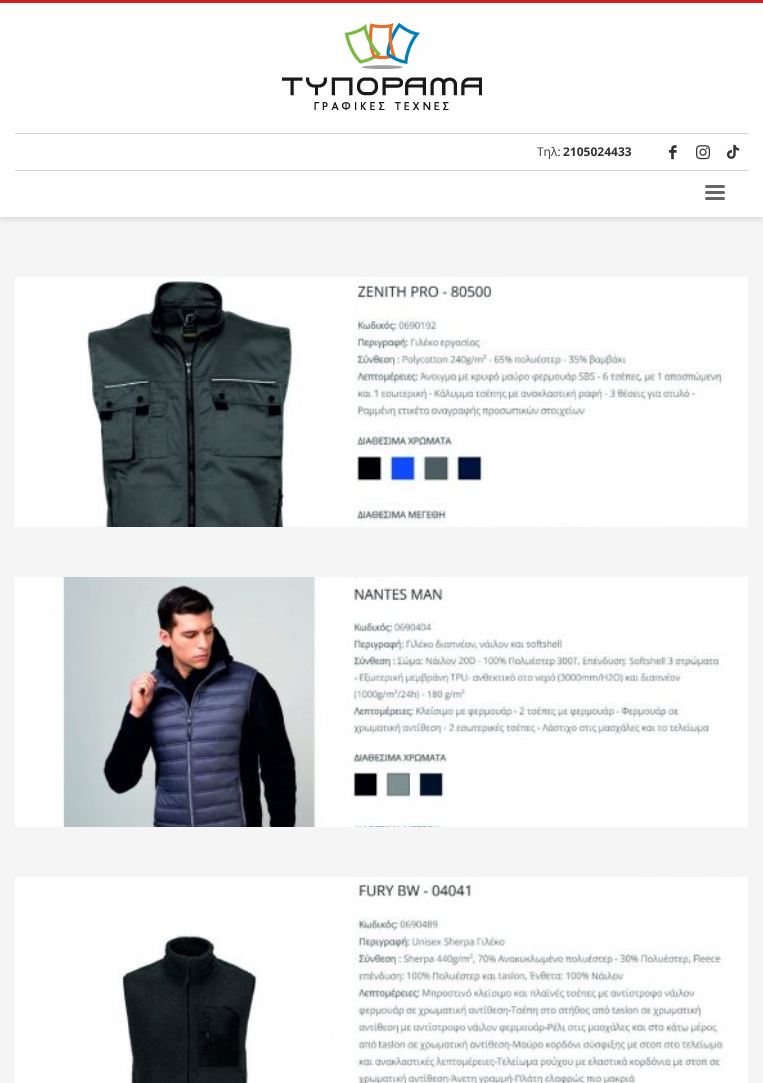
<?xml version="1.0" encoding="UTF-8"?>
<svg xmlns="http://www.w3.org/2000/svg" width="763" height="1083">
    <defs>
        <filter id="blur1" x="-50%" y="-200%" width="200%" height="500%"><feGaussianBlur stdDeviation="2.5"/></filter>
    </defs>
    <rect width="100%" height="100%" fill="#F5F5F5"/>
    <rect x="0" y="3" width="763" height="217" fill="#000000" fill-opacity="0.1" filter="url(#blur1)"/>
    <rect x="0" y="3" width="763" height="214" fill="#FEFEFE"/>
    <rect x="0" y="0" width="763" height="3" fill="#CD2122"/>
    <image x="282" y="23" width="200" height="87" href="img_01.png"/>
    <rect x="15" y="133" width="733" height="1" fill="#D5D5D5"/>
    <text x="537" y="156" font-family="Open Sans" font-size="12" fill="#333333">Τηλ:</text>
    <text x="563" y="156" font-family="Open Sans" font-size="12" font-weight="700" fill="#333333">2105024433</text>
    <image x="669" y="145" width="8" height="15" href="img_02.png"/>
    <image x="696" y="145" width="14" height="15" href="img_03.png"/>
    <image x="726" y="144" width="14" height="15" href="img_04.png"/>
    <rect x="15" y="170" width="733" height="1" fill="#D5D5D5"/>
    <rect x="705" y="185" width="20" height="3" rx="1.5" fill="#666666"/>
    <rect x="705" y="191" width="20" height="3" rx="1.5" fill="#666666"/>
    <rect x="705" y="197" width="20" height="3" rx="1.5" fill="#666666"/>
    <image x="15" y="277" width="733" height="250" href="img_05.png"/>
    <image x="15" y="577" width="733" height="250" href="img_06.png"/>
    <image x="15" y="877" width="733" height="206" href="img_07.png"/>
</svg>
